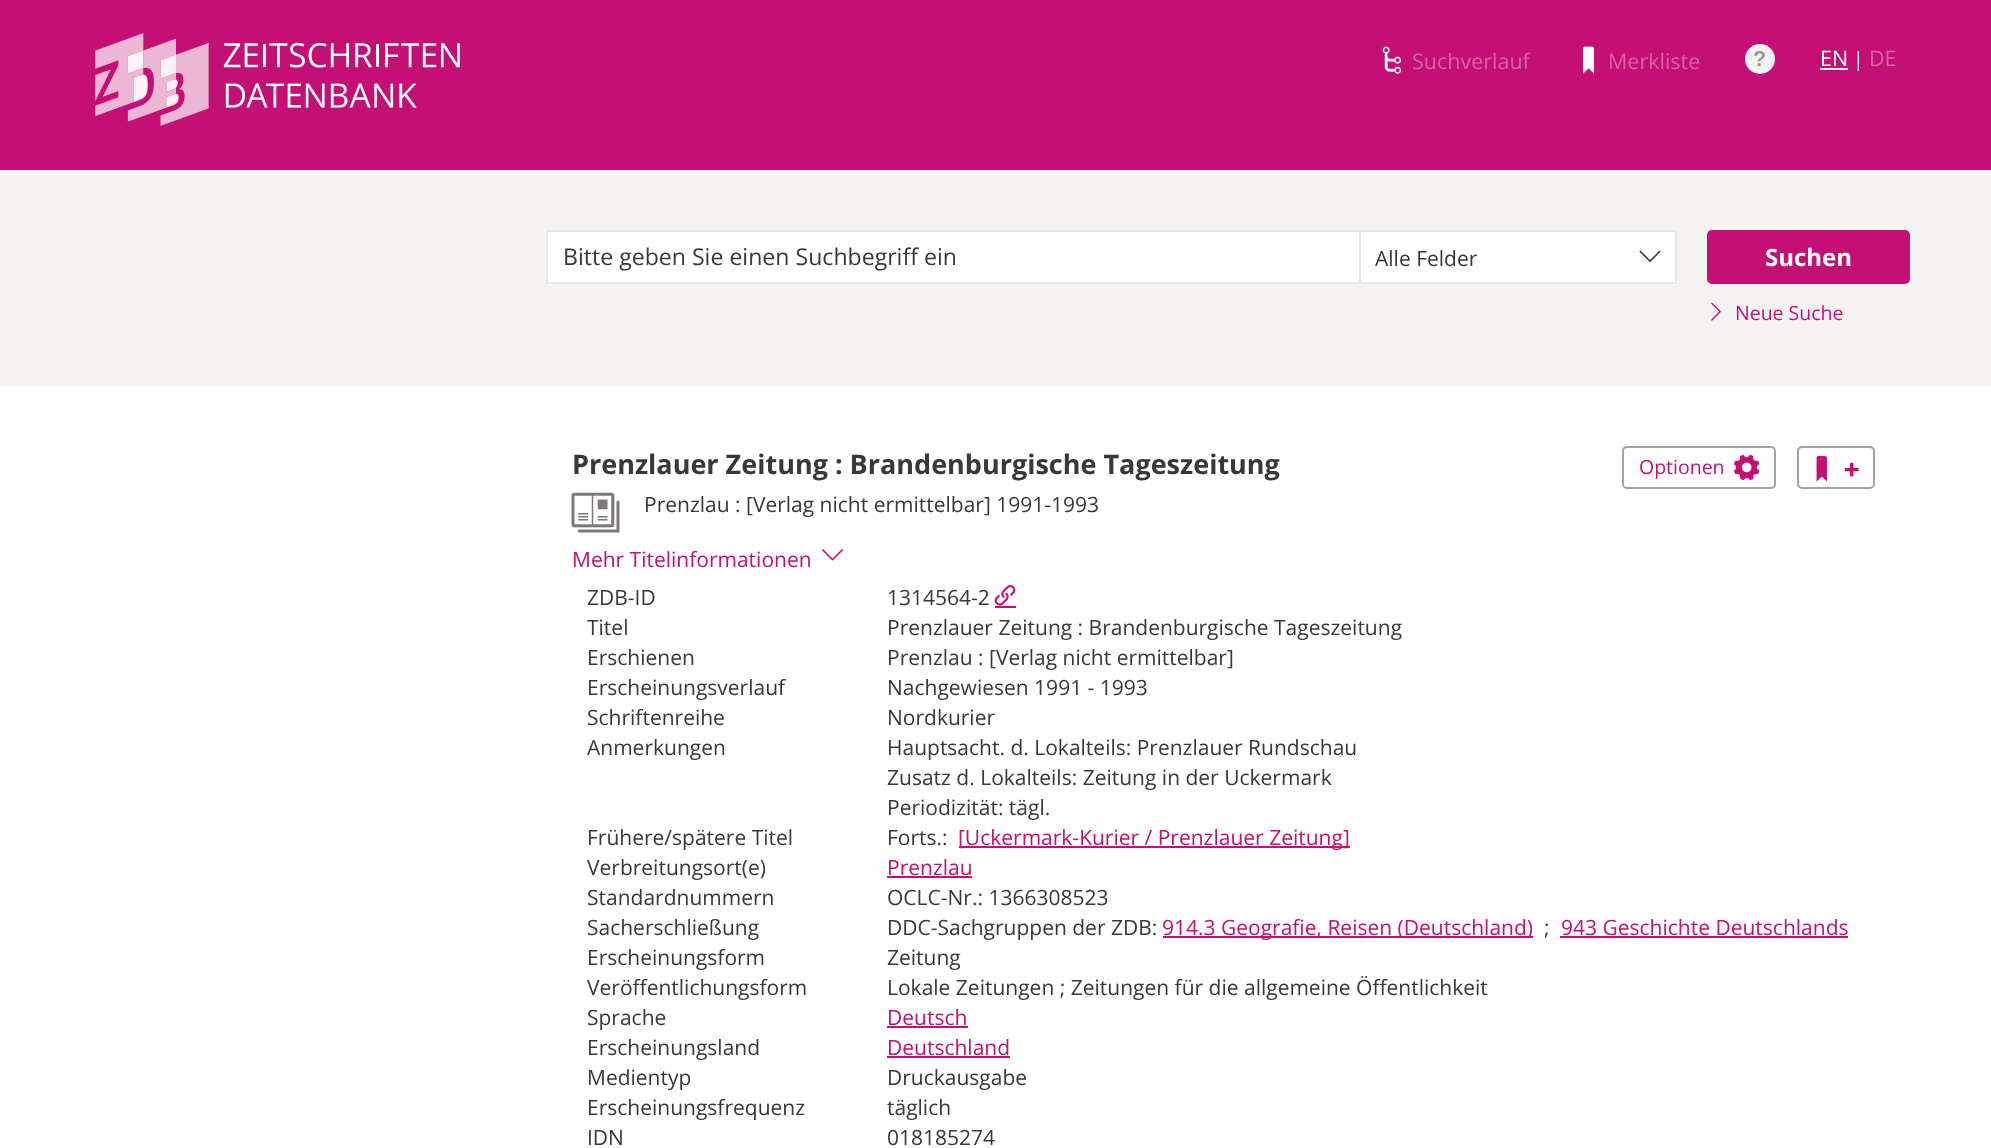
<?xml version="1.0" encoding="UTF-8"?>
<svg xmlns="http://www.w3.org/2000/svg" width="1991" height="1148">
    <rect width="100%" height="100%" fill="#FFFFFF"/>
    <rect x="0" y="0" width="1991" height="170" fill="#C40F74"/>
    <image x="95" y="33" width="365" height="93" href="img_01.png"/>
    <image x="1382" y="46" width="20" height="28" href="img_02.png"/>
    <text x="1412" y="69" font-family="Open Sans" font-size="21.5" fill="#D963A5">Suchverlauf</text>
    <image x="1583" y="46" width="11" height="28" href="img_03.png"/>
    <text x="1608" y="69" font-family="Open Sans" font-size="21.5" fill="#D963A5">Merkliste</text>
    <circle cx="1760" cy="59" r="15" fill="#F2F2F2"/>
    <text x="1753" y="66" font-family="Liberation Sans" font-size="21.5" font-weight="700" fill="#92969B">?</text>
    <text x="1820" y="66" font-family="Open Sans" font-size="21.5" fill="#FFFFFF">EN</text>
    <rect x="1820" y="68" width="28" height="2" fill="#FFFFFF"/>
    <text x="1853" y="66" font-family="Open Sans" font-size="19.5" fill="#FFFFFF">|</text>
    <text x="1869" y="66" font-family="Open Sans" font-size="21.5" fill="#D963A5">DE</text>
    <rect x="0" y="170" width="1991" height="216" fill="#F5F2F2"/>
    <rect x="547" y="231" width="813" height="52" fill="#FFFFFF" stroke="#E9E6E6" stroke-width="2"/>
    <text x="563" y="265" font-family="Open Sans" font-size="23.1" fill="#3C3737">Bitte geben Sie einen Suchbegriff ein</text>
    <rect x="1360" y="231" width="316" height="52" fill="#FFFFFF" stroke="#E9E6E6" stroke-width="2"/>
    <text x="1375" y="266" font-family="Open Sans" font-size="21" fill="#3C3737">Alle Felder</text>
    <image x="1639" y="250" width="22" height="12" href="img_04.png"/>
    <rect x="1707" y="230" width="203" height="54" rx="5" fill="#C40F74"/>
    <text x="1765" y="266" font-family="Open Sans" font-size="24" font-weight="700" fill="#FFFFFF">Suchen</text>
    <image x="1711" y="302" width="10" height="19" href="img_05.png"/>
    <text x="1735" y="320" font-family="Open Sans" font-size="19.5" fill="#C40F74">Neue Suche</text>
    <text x="572" y="474" font-family="Open Sans" font-size="27" font-weight="700" fill="#3C3737">Prenzlauer Zeitung : Brandenburgische Tageszeitung</text>
    <image x="571" y="492" width="49" height="41" href="img_06.png"/>
    <text x="644" y="512" font-family="Open Sans" font-size="21" fill="#3C3737">Prenzlau : [Verlag nicht ermittelbar] 1991-1993</text>
    <rect x="1623" y="447" width="152" height="41" rx="4" fill="none" stroke="#A6A0A0" stroke-width="2"/>
    <text x="1639" y="474" font-family="Open Sans" font-size="19.5" fill="#C40F74">Optionen</text>
    <image x="1733" y="454" width="27" height="27" href="img_07.png"/>
    <rect x="1798" y="447" width="76" height="41" rx="4" fill="none" stroke="#A6A0A0" stroke-width="2"/>
    <image x="1816" y="456" width="11" height="26" href="img_08.png"/>
    <image x="1845" y="462" width="14" height="15" href="img_09.png"/>
    <text x="572" y="567" font-family="Open Sans" font-size="21" fill="#C40F74">Mehr Titelinformationen</text>
    <image x="822" y="549" width="21" height="12" href="img_10.png"/>
    <text x="587" y="605" font-family="Open Sans" font-size="21" fill="#3C3737">ZDB-ID</text>
    <text x="887" y="605" font-family="Open Sans" font-size="21" fill="#3C3737">1314564-2</text>
    <image x="994" y="585" width="22" height="21" href="img_11.png"/>
    <rect x="995" y="606" width="21" height="2" fill="#C40F74"/>
    <text x="587" y="635" font-family="Open Sans" font-size="21" fill="#3C3737">Titel</text>
    <text x="887" y="635" font-family="Open Sans" font-size="21" fill="#3C3737">Prenzlauer Zeitung : Brandenburgische Tageszeitung</text>
    <text x="587" y="665" font-family="Open Sans" font-size="21" fill="#3C3737">Erschienen</text>
    <text x="887" y="665" font-family="Open Sans" font-size="21" fill="#3C3737">Prenzlau : [Verlag nicht ermittelbar]</text>
    <text x="587" y="695" font-family="Open Sans" font-size="21" fill="#3C3737">Erscheinungsverlauf</text>
    <text x="887" y="695" font-family="Open Sans" font-size="21" fill="#3C3737">Nachgewiesen 1991 - 1993</text>
    <text x="587" y="725" font-family="Open Sans" font-size="21" fill="#3C3737">Schriftenreihe</text>
    <text x="887" y="725" font-family="Open Sans" font-size="21" fill="#3C3737">Nordkurier</text>
    <text x="587" y="755" font-family="Open Sans" font-size="21" fill="#3C3737">Anmerkungen</text>
    <text font-family="Open Sans" font-size="21" fill="#3C3737">
        <tspan x="887" y="755">Hauptsacht. d. Lokalteils: Prenzlauer Rundschau</tspan>
        <tspan x="887" y="785">Zusatz d. Lokalteils: Zeitung in der Uckermark</tspan>
        <tspan x="887" y="815">Periodizität: tägl.</tspan>
    </text>
    <text x="587" y="845" font-family="Open Sans" font-size="21" fill="#3C3737">Frühere/spätere Titel</text>
    <text x="887" y="845" font-family="Open Sans" font-size="21" fill="#3C3737">Forts.:</text>
    <rect x="959" y="846" width="391" height="2" fill="#C40F74"/>
    <text x="958" y="845" font-family="Open Sans" font-size="21" fill="#C40F74">[Uckermark-Kurier / Prenzlauer Zeitung]</text>
    <text x="587" y="875" font-family="Open Sans" font-size="21" fill="#3C3737">Verbreitungsort(e)</text>
    <text x="887" y="875" font-family="Open Sans" font-size="21" fill="#C40F74">Prenzlau</text>
    <rect x="887" y="876" width="85" height="2" fill="#C40F74"/>
    <text x="587" y="905" font-family="Open Sans" font-size="21" fill="#3C3737">Standardnummern</text>
    <text x="887" y="905" font-family="Open Sans" font-size="21" fill="#3C3737">OCLC-Nr.: 1366308523</text>
    <text x="587" y="935" font-family="Open Sans" font-size="21" fill="#3C3737">Sacherschließung</text>
    <text x="887" y="935" font-family="Open Sans" font-size="21" fill="#3C3737">DDC-Sachgruppen der ZDB:</text>
    <rect x="1163" y="936" width="370" height="2" fill="#C40F74"/>
    <text x="1162" y="935" font-family="Open Sans" font-size="21" fill="#C40F74">914.3 Geografie, Reisen (Deutschland)</text>
    <text x="1544" y="935" font-family="Open Sans" font-size="21" fill="#3C3737">;</text>
    <text x="1561" y="935" font-family="Open Sans" font-size="21" fill="#C40F74">943 Geschichte Deutschlands</text>
    <rect x="1560" y="936" width="288" height="2" fill="#C40F74"/>
    <text x="587" y="965" font-family="Open Sans" font-size="21" fill="#3C3737">Erscheinungsform</text>
    <text x="887" y="965" font-family="Open Sans" font-size="21" fill="#3C3737">Zeitung</text>
    <text x="587" y="995" font-family="Open Sans" font-size="21" fill="#3C3737">Veröffentlichungsform</text>
    <text x="887" y="995" font-family="Open Sans" font-size="21" fill="#3C3737">Lokale Zeitungen ; Zeitungen für die allgemeine Öffentlichkeit</text>
    <text x="587" y="1025" font-family="Open Sans" font-size="21" fill="#3C3737">Sprache</text>
    <text x="887" y="1025" font-family="Open Sans" font-size="21" fill="#C40F74">Deutsch</text>
    <rect x="887" y="1026" width="81" height="2" fill="#C40F74"/>
    <text x="587" y="1055" font-family="Open Sans" font-size="21" fill="#3C3737">Erscheinungsland</text>
    <text x="887" y="1055" font-family="Open Sans" font-size="21" fill="#C40F74">Deutschland</text>
    <rect x="887" y="1056" width="123" height="2" fill="#C40F74"/>
    <text x="587" y="1085" font-family="Open Sans" font-size="21" fill="#3C3737">Medientyp</text>
    <text x="887" y="1085" font-family="Open Sans" font-size="21" fill="#3C3737">Druckausgabe</text>
    <text x="587" y="1115" font-family="Open Sans" font-size="21" fill="#3C3737">Erscheinungsfrequenz</text>
    <text x="887" y="1115" font-family="Open Sans" font-size="21" fill="#3C3737">täglich</text>
    <text x="587" y="1145" font-family="Open Sans" font-size="21" fill="#3C3737">IDN</text>
    <text x="887" y="1145" font-family="Open Sans" font-size="21" fill="#3C3737">018185274</text>
</svg>
